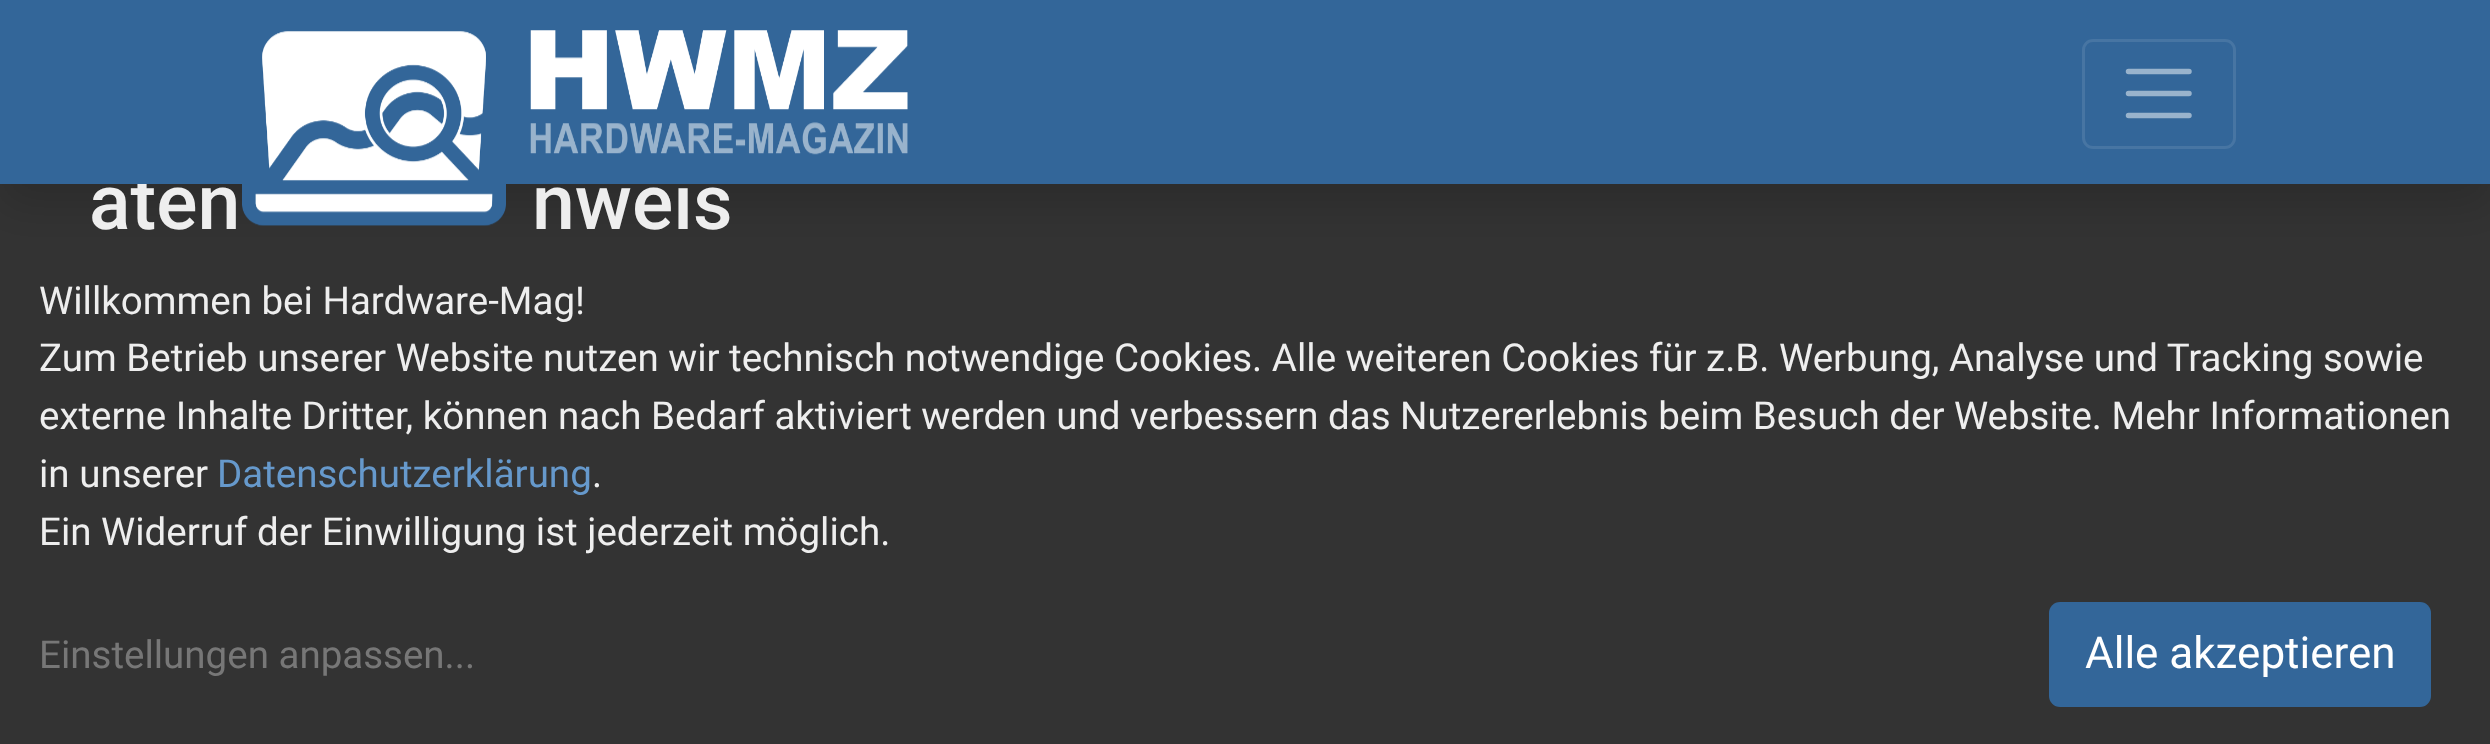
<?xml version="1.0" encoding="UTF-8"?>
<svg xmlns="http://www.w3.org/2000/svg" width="2490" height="744">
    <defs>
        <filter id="blur1" x="-50%" y="-200%" width="200%" height="500%"><feGaussianBlur stdDeviation="22"/></filter>
    </defs>
    <rect width="100%" height="100%" fill="#333333"/>
    <rect x="0" y="22" width="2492" height="184" fill="#000000" fill-opacity="0.15" filter="url(#blur1)"/>
    <text x="89" y="229" font-family="Roboto" font-size="77" font-weight="500" fill="#EEEEEE">aten</text>
    <text x="532" y="229" font-family="Roboto" font-size="77" font-weight="500" fill="#EEEEEE">nweis</text>
    <rect x="0" y="0" width="2490" height="184" fill="#336699"/>
    <image x="242" y="31" width="264" height="195" href="img_01.png"/>
    <image x="530" y="30" width="378" height="125" href="img_02.png"/>
    <rect x="2083.5" y="40.5" width="151" height="107" rx="9.5" fill="none" stroke="#4775A3" stroke-width="3"/>
    <path d="M 2128.5 71.5 H 2189 M 2128.5 93.5 H 2189 M 2128.5 115.5 H 2189" fill="none" stroke="#99B3CC" stroke-width="5.5" stroke-linecap="round"/>
    <text font-family="Roboto" font-size="38.5" fill="#EEEEEE">
        <tspan x="39" y="314">Willkommen bei Hardware-Mag!</tspan>
        <tspan x="39" y="371">Zum Betrieb unserer Website nutzen wir technisch notwendige Cookies. Alle weiteren Cookies für z.B. Werbung, Analyse und Tracking sowie</tspan>
        <tspan x="39" y="429">externe Inhalte Dritter, können nach Bedarf aktiviert werden und verbessern das Nutzererlebnis beim Besuch der Website. Mehr Informationen</tspan>
        <tspan x="39" y="487">in unserer</tspan>
    </text>
    <text x="217" y="487" font-family="Roboto" font-size="38.5" fill="#6699CC">Datenschutzerklärung</text>
    <text x="592" y="487" font-family="Roboto" font-size="38.5" fill="#EEEEEE">.</text>
    <text x="39" y="545" font-family="Roboto" font-size="38.5" fill="#EEEEEE">Ein Widerruf der Einwilligung ist jederzeit möglich.</text>
    <text x="39" y="668" font-family="Roboto" font-size="38.5" fill="#777777">Einstellungen anpassen...</text>
    <rect x="2049" y="602" width="382" height="105" rx="11" fill="#336699"/>
    <text x="2085" y="668" font-family="Roboto" font-size="44" fill="#FFFFFF">Alle akzeptieren</text>
</svg>
